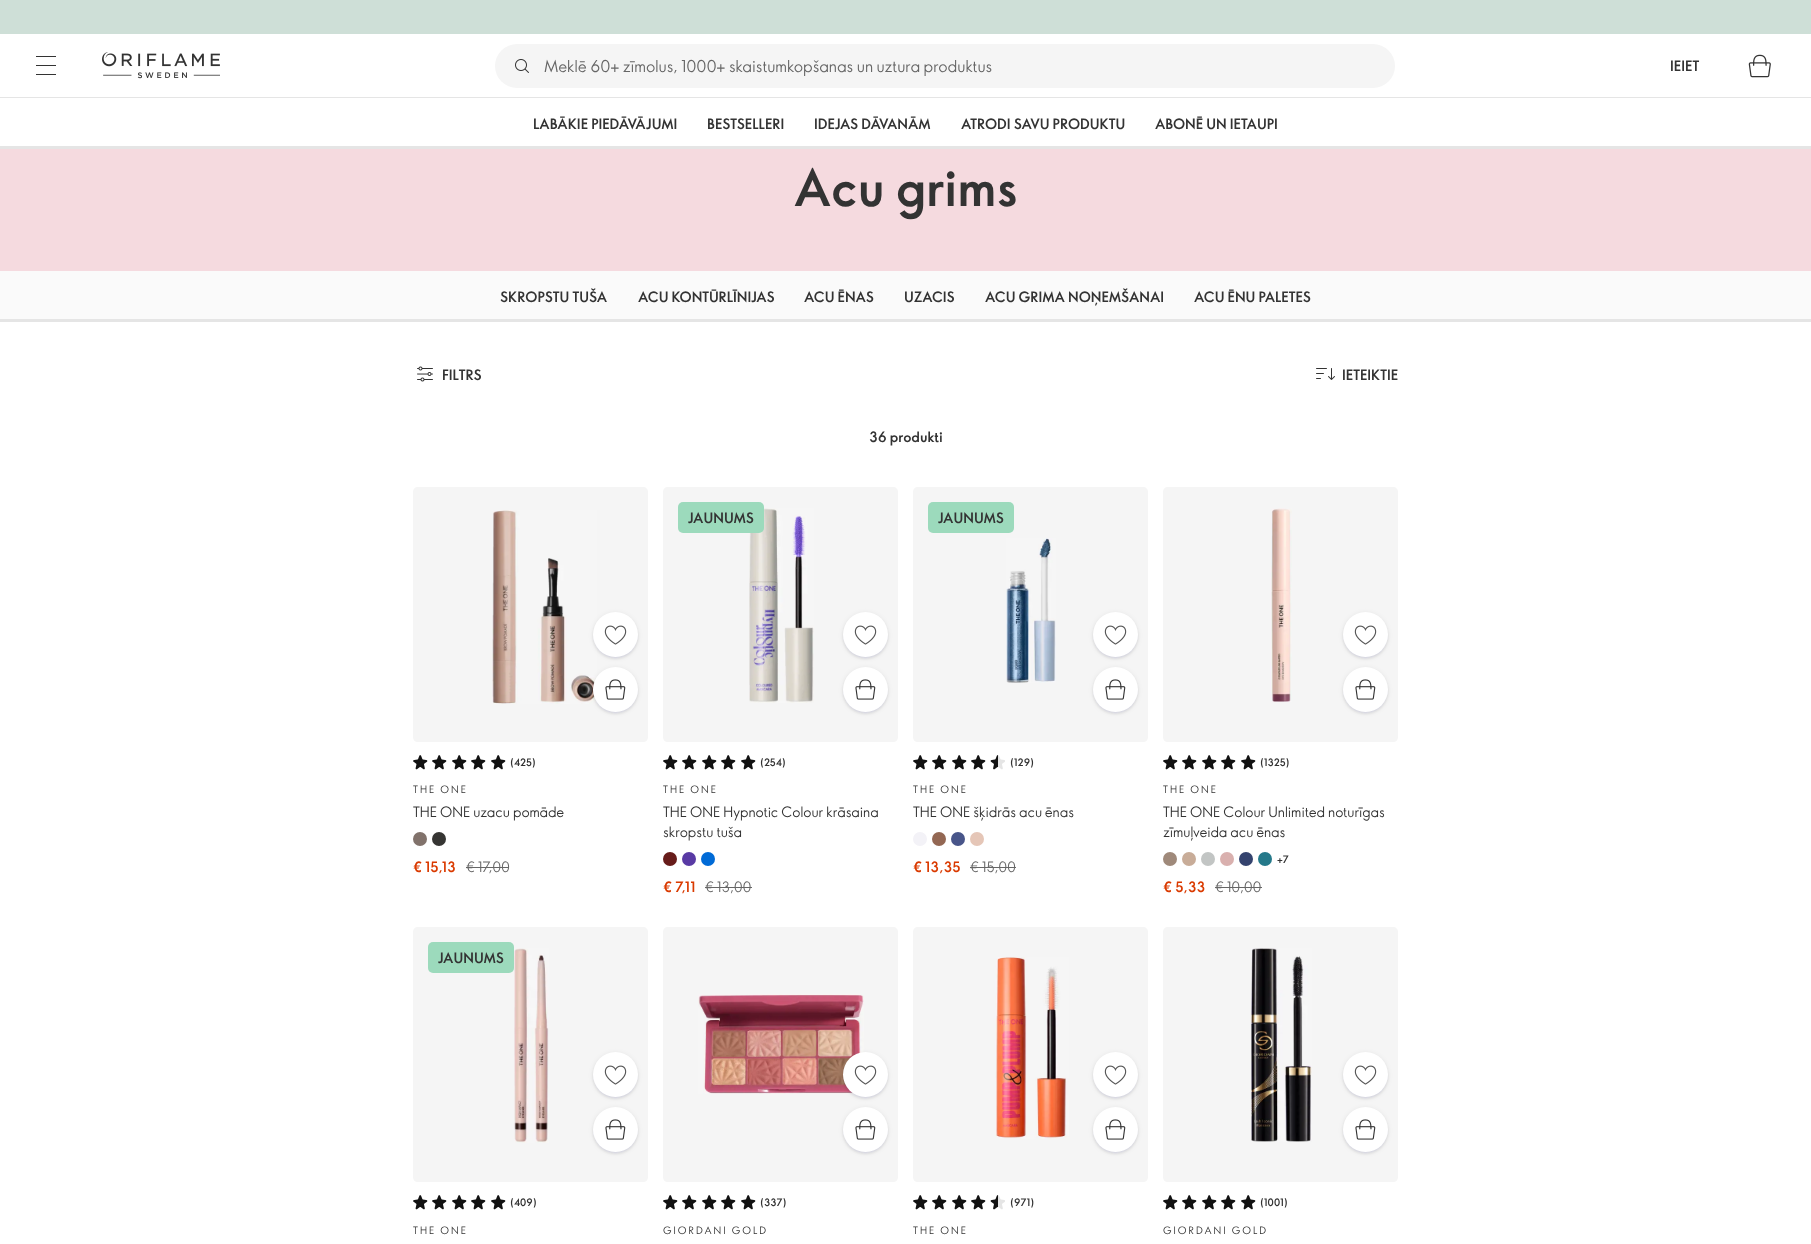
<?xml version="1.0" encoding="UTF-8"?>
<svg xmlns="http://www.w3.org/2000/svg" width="1811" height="1244">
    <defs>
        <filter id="blur1" x="-50%" y="-200%" width="200%" height="500%"><feGaussianBlur stdDeviation="2.5"/></filter>
        <filter id="blur2" x="-50%" y="-200%" width="200%" height="500%"><feGaussianBlur stdDeviation="1"/></filter>
    </defs>
    <rect width="100%" height="100%" fill="#FFFFFF"/>
    <rect x="0" y="97" width="1811" height="1" fill="#E5E5E5"/>
    <rect x="0" y="0" width="1811" height="34" fill="#CEDFD7"/>
    <rect x="36" y="56" width="20" height="1" fill="#333333"/>
    <rect x="36" y="65" width="20" height="1" fill="#333333"/>
    <rect x="36" y="74" width="20" height="1" fill="#333333"/>
    <image x="102" y="52" width="118" height="27" href="img_01.png"/>
    <rect x="495" y="44" width="900" height="44" rx="22" fill="#F5F5F5"/>
    <image x="515" y="59" width="14" height="14" href="img_02.png"/>
    <text x="544" y="72" font-family="'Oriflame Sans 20'" font-size="16" fill="#666666">Meklē 60+ zīmolus, 1000+ skaistumkopšanas un uztura produktus</text>
    <text x="1670" y="71" font-family="'Oriflame Sans 20'" font-size="14" font-weight="700" fill="#333333">IEIET</text>
    <image x="1748" y="54" width="23" height="24" href="img_03.png"/>
    <text x="533" y="129" font-family="'Oriflame Sans 20'" font-size="14" font-weight="700" fill="#333333">LABĀKIE PIEDĀVĀJUMI</text>
    <text x="707" y="129" font-family="'Oriflame Sans 20'" font-size="14" font-weight="700" fill="#333333">BESTSELLERI</text>
    <text x="814" y="129" font-family="'Oriflame Sans 20'" font-size="14" font-weight="700" fill="#333333">IDEJAS DĀVANĀM</text>
    <text x="961" y="129" font-family="'Oriflame Sans 20'" font-size="14" font-weight="700" fill="#333333">ATRODI SAVU PRODUKTU</text>
    <text x="1155" y="129" font-family="'Oriflame Sans 20'" font-size="14" font-weight="700" fill="#333333">ABONĒ UN IETAUPI</text>
    <rect x="0" y="146" width="1811" height="3" fill="#E5E5E5"/>
    <rect x="0" y="149" width="1811" height="122" fill="#F5DADF"/>
    <text x="794" y="206" font-family="'Oriflame Sans 20'" font-size="50" font-weight="700" fill="#333333">Acu grims</text>
    <rect x="0" y="271" width="1811" height="48" fill="#FAFAFA"/>
    <text x="500" y="302" font-family="'Oriflame Sans 20'" font-size="14" font-weight="700" fill="#333333">SKROPSTU TUŠA</text>
    <text x="638" y="302" font-family="'Oriflame Sans 20'" font-size="14" font-weight="700" fill="#333333">ACU KONTŪRLĪNIJAS</text>
    <text x="804" y="302" font-family="'Oriflame Sans 20'" font-size="14" font-weight="700" fill="#333333">ACU ĒNAS</text>
    <text x="904" y="302" font-family="'Oriflame Sans 20'" font-size="14" font-weight="700" fill="#333333">UZACIS</text>
    <text x="985" y="302" font-family="'Oriflame Sans 20'" font-size="14" font-weight="700" fill="#333333">ACU GRIMA NOŅEMŠANAI</text>
    <text x="1194" y="302" font-family="'Oriflame Sans 20'" font-size="14" font-weight="700" fill="#333333">ACU ĒNU PALETES</text>
    <rect x="0" y="319" width="1811" height="3" fill="#E5E5E5"/>
    <image x="417" y="366" width="16" height="16" href="img_04.png"/>
    <text x="442" y="380" font-family="'Oriflame Sans 20'" font-size="14" font-weight="700" fill="#333333">FILTRS</text>
    <image x="1316" y="368" width="19" height="12" href="img_05.png"/>
    <text x="1342" y="380" font-family="'Oriflame Sans 20'" font-size="14" font-weight="700" fill="#333333">IETEIKTIE</text>
    <text x="869" y="442" font-family="'Oriflame Sans 20'" font-size="14" font-weight="700" fill="#333333">36 produkti</text>
    <path d="M 418 487 H 643 C 646 487 648 489 648 492 V 722 H 413 V 492 C 413 489 415 487 418 487 Z" fill="#F5F5F5"/>
    <image x="492" y="510" width="105" height="194" href="img_06.png"/>
    <rect x="593" y="613" width="45" height="45" rx="22.5" fill="#000042" fill-opacity="0.08" filter="url(#blur1)"/>
    <rect x="593" y="614" width="45" height="45" rx="22.5" fill="#000042" fill-opacity="0.08" filter="url(#blur2)"/>
    <circle cx="615.5" cy="634.5" r="22.5" fill="#FFFFFF"/>
    <image x="604" y="625" width="23" height="20" href="img_07.png"/>
    <rect x="593" y="668" width="45" height="45" rx="22.5" fill="#000042" fill-opacity="0.08" filter="url(#blur1)"/>
    <rect x="593" y="669" width="45" height="45" rx="22.5" fill="#000042" fill-opacity="0.08" filter="url(#blur2)"/>
    <circle cx="615.5" cy="689.5" r="22.5" fill="#FFFFFF"/>
    <image x="605" y="679" width="21" height="21" href="img_08.png"/>
    <path d="M 413 722 H 648 V 737 C 648 740 646 742 643 742 H 418 C 415 742 413 740 413 737 Z" fill="#F5F5F5"/>
    <image x="413" y="755" width="15" height="15" href="img_09.png"/>
    <image x="432" y="755" width="15" height="15" href="img_09.png"/>
    <image x="452" y="755" width="15" height="15" href="img_09.png"/>
    <image x="471" y="755" width="15" height="15" href="img_09.png"/>
    <image x="491" y="755" width="15" height="15" href="img_09.png"/>
    <text x="510" y="766" font-family="'Oriflame Sans 20'" font-size="10" font-weight="700" fill="#333333">(425)</text>
    <text x="413" y="793" font-family="'Oriflame Sans 20'" font-size="10" letter-spacing="2" fill="#333333">THE ONE</text>
    <text x="413" y="817" font-family="'Oriflame Sans 20'" font-size="14" fill="#333333">THE ONE uzacu pomāde</text>
    <circle cx="420" cy="839" r="7" fill="#81726B"/>
    <circle cx="439" cy="839" r="7" fill="#363533"/>
    <text x="413" y="872" font-family="'Oriflame Sans 20'" font-size="14" font-weight="700" fill="#DA3A00">€ 15,13</text>
    <text x="466" y="872" font-family="'Oriflame Sans 20'" font-size="14" fill="#666666">€ 17,00</text>
    <rect x="466" y="867" width="43" height="1" fill="#666666"/>
    <path d="M 668 487 H 893 C 896 487 898 489 898 492 V 722 H 663 V 492 C 663 489 665 487 668 487 Z" fill="#F5F5F5"/>
    <image x="749" y="508" width="65" height="195" href="img_10.png"/>
    <rect x="678" y="502" width="86" height="31" rx="5" fill="#9CDABC"/>
    <text x="688" y="523" font-family="'Oriflame Sans 20'" font-size="14" font-weight="700" fill="#333333">JAUNUMS</text>
    <rect x="843" y="613" width="45" height="45" rx="22.5" fill="#000042" fill-opacity="0.08" filter="url(#blur1)"/>
    <rect x="843" y="614" width="45" height="45" rx="22.5" fill="#000042" fill-opacity="0.08" filter="url(#blur2)"/>
    <circle cx="865.5" cy="634.5" r="22.5" fill="#FFFFFF"/>
    <image x="854" y="625" width="23" height="20" href="img_07.png"/>
    <rect x="843" y="668" width="45" height="45" rx="22.5" fill="#000042" fill-opacity="0.08" filter="url(#blur1)"/>
    <rect x="843" y="669" width="45" height="45" rx="22.5" fill="#000042" fill-opacity="0.08" filter="url(#blur2)"/>
    <circle cx="865.5" cy="689.5" r="22.5" fill="#FFFFFF"/>
    <image x="855" y="679" width="21" height="21" href="img_08.png"/>
    <path d="M 663 722 H 898 V 737 C 898 740 896 742 893 742 H 668 C 665 742 663 740 663 737 Z" fill="#F5F5F5"/>
    <image x="663" y="755" width="15" height="15" href="img_09.png"/>
    <image x="682" y="755" width="15" height="15" href="img_09.png"/>
    <image x="702" y="755" width="15" height="15" href="img_09.png"/>
    <image x="721" y="755" width="15" height="15" href="img_09.png"/>
    <image x="741" y="755" width="15" height="15" href="img_09.png"/>
    <text x="760" y="766" font-family="'Oriflame Sans 20'" font-size="10" font-weight="700" fill="#333333">(254)</text>
    <text x="663" y="793" font-family="'Oriflame Sans 20'" font-size="10" letter-spacing="2" fill="#333333">THE ONE</text>
    <text font-family="'Oriflame Sans 20'" font-size="14" fill="#333333">
        <tspan x="663" y="817">THE ONE Hypnotic Colour krāsaina</tspan>
        <tspan x="663" y="837">skropstu tuša</tspan>
    </text>
    <circle cx="670" cy="859" r="7" fill="#671C1A"/>
    <circle cx="689" cy="859" r="7" fill="#593AA4"/>
    <circle cx="708" cy="859" r="7" fill="#006AD6"/>
    <text x="663" y="892" font-family="'Oriflame Sans 20'" font-size="14" font-weight="700" fill="#DA3A00">€ 7,11</text>
    <text x="705" y="892" font-family="'Oriflame Sans 20'" font-size="14" fill="#666666">€ 13,00</text>
    <rect x="705" y="887" width="47" height="1" fill="#666666"/>
    <path d="M 918 487 H 1143 C 1146 487 1148 489 1148 492 V 722 H 913 V 492 C 913 489 915 487 918 487 Z" fill="#F5F5F5"/>
    <rect x="928" y="502" width="86" height="31" rx="5" fill="#9CDABC"/>
    <text x="938" y="523" font-family="'Oriflame Sans 20'" font-size="14" font-weight="700" fill="#333333">JAUNUMS</text>
    <image x="1006" y="538" width="50" height="145" href="img_11.png"/>
    <rect x="1093" y="613" width="45" height="45" rx="22.5" fill="#000042" fill-opacity="0.08" filter="url(#blur1)"/>
    <rect x="1093" y="614" width="45" height="45" rx="22.5" fill="#000042" fill-opacity="0.08" filter="url(#blur2)"/>
    <circle cx="1115.5" cy="634.5" r="22.5" fill="#FFFFFF"/>
    <image x="1104" y="625" width="23" height="20" href="img_07.png"/>
    <rect x="1093" y="668" width="45" height="45" rx="22.5" fill="#000042" fill-opacity="0.08" filter="url(#blur1)"/>
    <rect x="1093" y="669" width="45" height="45" rx="22.5" fill="#000042" fill-opacity="0.08" filter="url(#blur2)"/>
    <circle cx="1115.5" cy="689.5" r="22.5" fill="#FFFFFF"/>
    <image x="1105" y="679" width="21" height="21" href="img_08.png"/>
    <path d="M 913 722 H 1148 V 737 C 1148 740 1146 742 1143 742 H 918 C 915 742 913 740 913 737 Z" fill="#F5F5F5"/>
    <image x="913" y="755" width="15" height="15" href="img_09.png"/>
    <image x="932" y="755" width="15" height="15" href="img_09.png"/>
    <image x="952" y="755" width="15" height="15" href="img_09.png"/>
    <image x="971" y="755" width="15" height="15" href="img_09.png"/>
    <image x="991" y="755" width="14" height="15" href="img_13.png"/>
    <image x="990" y="755" width="8" height="15" href="img_12.png"/>
    <text x="1010" y="766" font-family="'Oriflame Sans 20'" font-size="10" font-weight="700" fill="#333333">(129)</text>
    <text x="913" y="793" font-family="'Oriflame Sans 20'" font-size="10" letter-spacing="2" fill="#333333">THE ONE</text>
    <text x="913" y="817" font-family="'Oriflame Sans 20'" font-size="14" fill="#333333">THE ONE šķidrās acu ēnas</text>
    <circle cx="920" cy="839" r="7" fill="#F3F2F7"/>
    <circle cx="939" cy="839" r="7" fill="#936753"/>
    <circle cx="958" cy="839" r="7" fill="#485589"/>
    <circle cx="977" cy="839" r="7" fill="#E5C6B7"/>
    <text x="913" y="872" font-family="'Oriflame Sans 20'" font-size="14" font-weight="700" fill="#DA3A00">€ 13,35</text>
    <text x="970" y="872" font-family="'Oriflame Sans 20'" font-size="14" fill="#666666">€ 15,00</text>
    <rect x="970" y="867" width="46" height="1" fill="#666666"/>
    <path d="M 1168 487 H 1393 C 1396 487 1398 489 1398 492 V 722 H 1163 V 492 C 1163 489 1165 487 1168 487 Z" fill="#F5F5F5"/>
    <image x="1270" y="508" width="22" height="194" href="img_14.png"/>
    <rect x="1343" y="613" width="45" height="45" rx="22.5" fill="#000042" fill-opacity="0.08" filter="url(#blur1)"/>
    <rect x="1343" y="614" width="45" height="45" rx="22.5" fill="#000042" fill-opacity="0.08" filter="url(#blur2)"/>
    <circle cx="1365.5" cy="634.5" r="22.5" fill="#FFFFFF"/>
    <image x="1354" y="625" width="23" height="20" href="img_07.png"/>
    <rect x="1343" y="668" width="45" height="45" rx="22.5" fill="#000042" fill-opacity="0.08" filter="url(#blur1)"/>
    <rect x="1343" y="669" width="45" height="45" rx="22.5" fill="#000042" fill-opacity="0.08" filter="url(#blur2)"/>
    <circle cx="1365.5" cy="689.5" r="22.5" fill="#FFFFFF"/>
    <image x="1355" y="679" width="21" height="21" href="img_08.png"/>
    <path d="M 1163 722 H 1398 V 737 C 1398 740 1396 742 1393 742 H 1168 C 1165 742 1163 740 1163 737 Z" fill="#F5F5F5"/>
    <image x="1163" y="755" width="15" height="15" href="img_09.png"/>
    <image x="1182" y="755" width="15" height="15" href="img_09.png"/>
    <image x="1202" y="755" width="15" height="15" href="img_09.png"/>
    <image x="1221" y="755" width="15" height="15" href="img_09.png"/>
    <image x="1241" y="755" width="15" height="15" href="img_09.png"/>
    <text x="1260" y="766" font-family="'Oriflame Sans 20'" font-size="10" font-weight="700" fill="#333333">(1325)</text>
    <text x="1163" y="793" font-family="'Oriflame Sans 20'" font-size="10" letter-spacing="2" fill="#333333">THE ONE</text>
    <text font-family="'Oriflame Sans 20'" font-size="14" fill="#333333">
        <tspan x="1163" y="817">THE ONE Colour Unlimited noturīgas</tspan>
        <tspan x="1163" y="837">zīmuļveida acu ēnas</tspan>
    </text>
    <circle cx="1170" cy="859" r="7" fill="#9F897A"/>
    <circle cx="1189" cy="859" r="7" fill="#C8AC98"/>
    <circle cx="1208" cy="859" r="7" fill="#C2C5C4"/>
    <circle cx="1227" cy="859" r="7" fill="#D9B0AE"/>
    <circle cx="1246" cy="859" r="7" fill="#34436E"/>
    <circle cx="1265" cy="859" r="7" fill="#25798A"/>
    <text x="1277" y="863" font-family="'Oriflame Sans 20'" font-size="10" font-weight="700" fill="#333333">+7</text>
    <text x="1163" y="892" font-family="'Oriflame Sans 20'" font-size="14" font-weight="700" fill="#DA3A00">€ 5,33</text>
    <text x="1215" y="892" font-family="'Oriflame Sans 20'" font-size="14" fill="#666666">€ 10,00</text>
    <rect x="1215" y="887" width="47" height="1" fill="#666666"/>
    <path d="M 418 927 H 643 C 646 927 648 929 648 932 V 1162 H 413 V 932 C 413 929 415 927 418 927 Z" fill="#F5F5F5"/>
    <rect x="428" y="942" width="86" height="31" rx="5" fill="#9CDABC"/>
    <text x="438" y="963" font-family="'Oriflame Sans 20'" font-size="14" font-weight="700" fill="#333333">JAUNUMS</text>
    <image x="514" y="948" width="35" height="195" href="img_15.png"/>
    <rect x="593" y="1053" width="45" height="45" rx="22.5" fill="#000042" fill-opacity="0.08" filter="url(#blur1)"/>
    <rect x="593" y="1054" width="45" height="45" rx="22.5" fill="#000042" fill-opacity="0.08" filter="url(#blur2)"/>
    <circle cx="615.5" cy="1074.5" r="22.5" fill="#FFFFFF"/>
    <image x="604" y="1065" width="23" height="20" href="img_07.png"/>
    <rect x="593" y="1108" width="45" height="45" rx="22.5" fill="#000042" fill-opacity="0.08" filter="url(#blur1)"/>
    <rect x="593" y="1109" width="45" height="45" rx="22.5" fill="#000042" fill-opacity="0.08" filter="url(#blur2)"/>
    <circle cx="615.5" cy="1129.5" r="22.5" fill="#FFFFFF"/>
    <image x="605" y="1119" width="21" height="21" href="img_08.png"/>
    <path d="M 413 1162 H 648 V 1177 C 648 1180 646 1182 643 1182 H 418 C 415 1182 413 1180 413 1177 Z" fill="#F5F5F5"/>
    <image x="413" y="1195" width="15" height="15" href="img_09.png"/>
    <image x="432" y="1195" width="15" height="15" href="img_09.png"/>
    <image x="452" y="1195" width="15" height="15" href="img_09.png"/>
    <image x="471" y="1195" width="15" height="15" href="img_09.png"/>
    <image x="491" y="1195" width="15" height="15" href="img_09.png"/>
    <text x="510" y="1206" font-family="'Oriflame Sans 20'" font-size="10" font-weight="700" fill="#333333">(409)</text>
    <text x="413" y="1234" font-family="'Oriflame Sans 20'" font-size="10" letter-spacing="2" fill="#333333">THE ONE</text>
    <path d="M 668 927 H 893 C 896 927 898 929 898 932 V 1162 H 663 V 932 C 663 929 665 927 668 927 Z" fill="#F5F5F5"/>
    <image x="698" y="994" width="166" height="100" href="img_16.png"/>
    <rect x="843" y="1053" width="45" height="45" rx="22.5" fill="#000042" fill-opacity="0.08" filter="url(#blur1)"/>
    <rect x="843" y="1054" width="45" height="45" rx="22.5" fill="#000042" fill-opacity="0.08" filter="url(#blur2)"/>
    <circle cx="865.5" cy="1074.5" r="22.5" fill="#FFFFFF"/>
    <image x="854" y="1065" width="23" height="20" href="img_07.png"/>
    <rect x="843" y="1108" width="45" height="45" rx="22.5" fill="#000042" fill-opacity="0.08" filter="url(#blur1)"/>
    <rect x="843" y="1109" width="45" height="45" rx="22.5" fill="#000042" fill-opacity="0.08" filter="url(#blur2)"/>
    <circle cx="865.5" cy="1129.5" r="22.5" fill="#FFFFFF"/>
    <image x="855" y="1119" width="21" height="21" href="img_08.png"/>
    <path d="M 663 1162 H 898 V 1177 C 898 1180 896 1182 893 1182 H 668 C 665 1182 663 1180 663 1177 Z" fill="#F5F5F5"/>
    <image x="663" y="1195" width="15" height="15" href="img_09.png"/>
    <image x="682" y="1195" width="15" height="15" href="img_09.png"/>
    <image x="702" y="1195" width="15" height="15" href="img_09.png"/>
    <image x="721" y="1195" width="15" height="15" href="img_09.png"/>
    <image x="741" y="1195" width="15" height="15" href="img_09.png"/>
    <text x="760" y="1206" font-family="'Oriflame Sans 20'" font-size="10" font-weight="700" fill="#333333">(337)</text>
    <text x="663" y="1234" font-family="'Oriflame Sans 20'" font-size="10" letter-spacing="2" fill="#333333">GIORDANI GOLD</text>
    <path d="M 918 927 H 1143 C 1146 927 1148 929 1148 932 V 1162 H 913 V 932 C 913 929 915 927 918 927 Z" fill="#F5F5F5"/>
    <image x="995" y="957" width="74" height="182" href="img_17.png"/>
    <rect x="1093" y="1053" width="45" height="45" rx="22.5" fill="#000042" fill-opacity="0.08" filter="url(#blur1)"/>
    <rect x="1093" y="1054" width="45" height="45" rx="22.5" fill="#000042" fill-opacity="0.08" filter="url(#blur2)"/>
    <circle cx="1115.5" cy="1074.5" r="22.5" fill="#FFFFFF"/>
    <image x="1104" y="1065" width="23" height="20" href="img_07.png"/>
    <rect x="1093" y="1108" width="45" height="45" rx="22.5" fill="#000042" fill-opacity="0.08" filter="url(#blur1)"/>
    <rect x="1093" y="1109" width="45" height="45" rx="22.5" fill="#000042" fill-opacity="0.08" filter="url(#blur2)"/>
    <circle cx="1115.5" cy="1129.5" r="22.5" fill="#FFFFFF"/>
    <image x="1105" y="1119" width="21" height="21" href="img_08.png"/>
    <path d="M 913 1162 H 1148 V 1177 C 1148 1180 1146 1182 1143 1182 H 918 C 915 1182 913 1180 913 1177 Z" fill="#F5F5F5"/>
    <image x="913" y="1195" width="15" height="15" href="img_09.png"/>
    <image x="932" y="1195" width="15" height="15" href="img_09.png"/>
    <image x="952" y="1195" width="15" height="15" href="img_09.png"/>
    <image x="971" y="1195" width="15" height="15" href="img_09.png"/>
    <image x="991" y="1195" width="14" height="15" href="img_13.png"/>
    <image x="990" y="1195" width="8" height="15" href="img_12.png"/>
    <text x="1010" y="1206" font-family="'Oriflame Sans 20'" font-size="10" font-weight="700" fill="#333333">(971)</text>
    <text x="913" y="1234" font-family="'Oriflame Sans 20'" font-size="10" letter-spacing="2" fill="#333333">THE ONE</text>
    <path d="M 1168 927 H 1393 C 1396 927 1398 929 1398 932 V 1162 H 1163 V 932 C 1163 929 1165 927 1168 927 Z" fill="#F5F5F5"/>
    <image x="1251" y="948" width="61" height="194" href="img_18.png"/>
    <rect x="1343" y="1053" width="45" height="45" rx="22.5" fill="#000042" fill-opacity="0.08" filter="url(#blur1)"/>
    <rect x="1343" y="1054" width="45" height="45" rx="22.5" fill="#000042" fill-opacity="0.08" filter="url(#blur2)"/>
    <circle cx="1365.5" cy="1074.5" r="22.5" fill="#FFFFFF"/>
    <image x="1354" y="1065" width="23" height="20" href="img_07.png"/>
    <rect x="1343" y="1108" width="45" height="45" rx="22.5" fill="#000042" fill-opacity="0.08" filter="url(#blur1)"/>
    <rect x="1343" y="1109" width="45" height="45" rx="22.5" fill="#000042" fill-opacity="0.08" filter="url(#blur2)"/>
    <circle cx="1365.5" cy="1129.5" r="22.5" fill="#FFFFFF"/>
    <image x="1355" y="1119" width="21" height="21" href="img_08.png"/>
    <path d="M 1163 1162 H 1398 V 1177 C 1398 1180 1396 1182 1393 1182 H 1168 C 1165 1182 1163 1180 1163 1177 Z" fill="#F5F5F5"/>
    <image x="1163" y="1195" width="15" height="15" href="img_09.png"/>
    <image x="1182" y="1195" width="15" height="15" href="img_09.png"/>
    <image x="1202" y="1195" width="15" height="15" href="img_09.png"/>
    <image x="1221" y="1195" width="15" height="15" href="img_09.png"/>
    <image x="1241" y="1195" width="15" height="15" href="img_09.png"/>
    <text x="1260" y="1206" font-family="'Oriflame Sans 20'" font-size="10" font-weight="700" fill="#333333">(1001)</text>
    <text x="1163" y="1234" font-family="'Oriflame Sans 20'" font-size="10" letter-spacing="2" fill="#333333">GIORDANI GOLD</text>
</svg>
